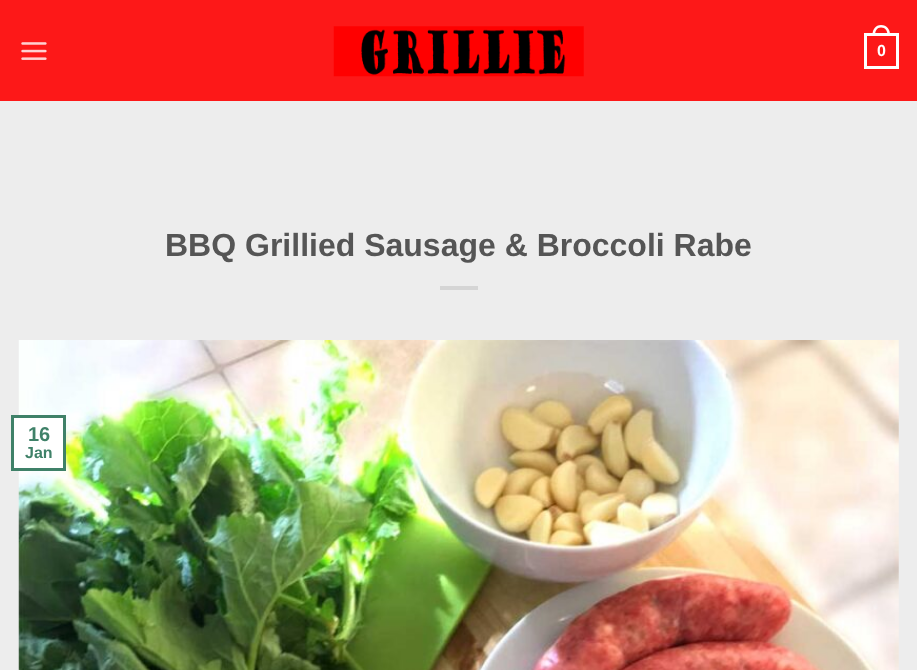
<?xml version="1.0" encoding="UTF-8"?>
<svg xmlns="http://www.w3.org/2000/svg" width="917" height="670">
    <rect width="100%" height="100%" fill="#EDEDED"/>
    <rect x="0" y="0" width="917" height="101" fill="#FD1818"/>
    <image x="21" y="42" width="26" height="18" href="img_01.png"/>
    <image x="333" y="26" width="251" height="51" href="img_02.png"/>
    <rect x="865.5" y="34.5" width="32" height="33" fill="none" stroke="#FFFFFF" stroke-width="3"/>
    <path d="M 881 25 C 887 25 890 29.5 890 35 H 872.5 C 872.5 29.5 875.5 25 881 25 Z M 881 27.5 C 885.5 27.5 887.5 31 887.5 35 H 875 C 875 31 877 27.5 881 27.5 Z" fill="#FFFFFF" fill-rule="evenodd"/>
    <text x="877" y="56" font-family="Liberation Sans" font-size="16" font-weight="700" fill="#FFFFFF">0</text>
    <text x="165" y="256" font-family="Liberation Sans" font-size="32" font-weight="700" fill="#555555">BBQ Grillied Sausage &amp; Broccoli Rabe</text>
    <rect x="440" y="286" width="38" height="4" fill="#D5D5D5"/>
    <image x="18" y="340" width="881" height="330" href="img_03.png"/>
    <rect x="12.5" y="416.5" width="52" height="53" fill="#FFFFFF" stroke="#3F8168" stroke-width="3"/>
    <text x="28" y="441" font-family="Liberation Sans" font-size="20" font-weight="700" fill="#3F8168">16</text>
    <text x="25" y="458" font-family="Liberation Sans" font-size="16" font-weight="700" fill="#3F8168">Jan</text>
</svg>
